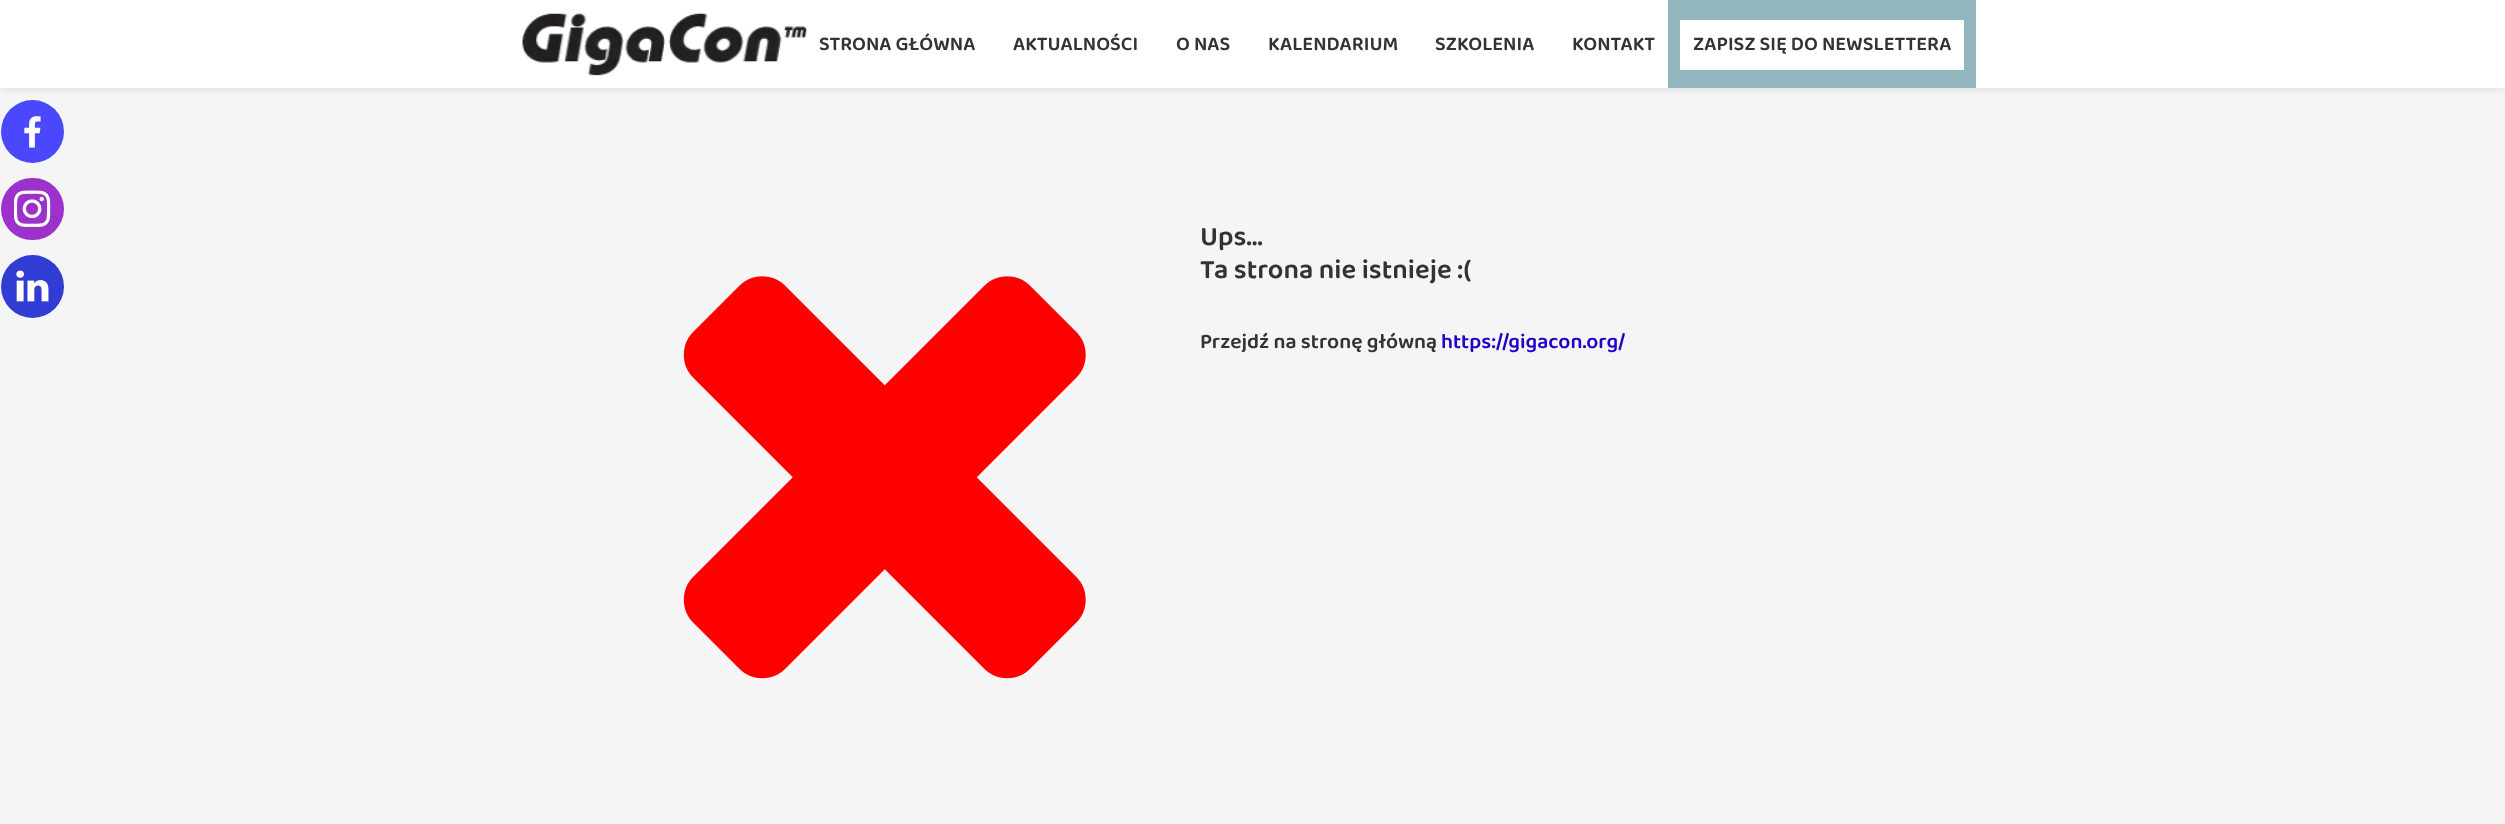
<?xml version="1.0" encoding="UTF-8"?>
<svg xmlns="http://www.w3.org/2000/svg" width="2505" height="824">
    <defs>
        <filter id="blur1" x="-50%" y="-200%" width="200%" height="500%"><feGaussianBlur stdDeviation="3"/></filter>
    </defs>
    <rect width="100%" height="100%" fill="#F5F5F5"/>
    <rect x="0" y="1" width="2505" height="88" fill="#000000" fill-opacity="0.1" filter="url(#blur1)"/>
    <rect x="0" y="0" width="2505" height="88" fill="#FFFFFF"/>
    <image x="522" y="13" width="285" height="63" href="img_01.png"/>
    <rect x="1668" y="0" width="308" height="88" fill="#92B6BD"/>
    <text x="819" y="50" font-family="'Baloo 2'" font-size="20" font-weight="600" fill="#333333">STRONA GŁÓWNA</text>
    <text x="1013" y="50" font-family="'Baloo 2'" font-size="20" font-weight="600" fill="#333333">AKTUALNOŚCI</text>
    <text x="1176" y="50" font-family="'Baloo 2'" font-size="20" font-weight="600" fill="#333333">O NAS</text>
    <text x="1268" y="50" font-family="'Baloo 2'" font-size="20" font-weight="600" fill="#333333">KALENDARIUM</text>
    <text x="1435" y="50" font-family="'Baloo 2'" font-size="20" font-weight="600" fill="#333333">SZKOLENIA</text>
    <text x="1572" y="50" font-family="'Baloo 2'" font-size="20" font-weight="600" fill="#333333">KONTAKT</text>
    <rect x="1680" y="20" width="284" height="50" fill="#FFFFFF"/>
    <text x="1693" y="50" font-family="'Baloo 2'" font-size="20" font-weight="600" fill="#333333">ZAPISZ SIĘ DO NEWSLETTERA</text>
    <circle cx="32.5" cy="131.5" r="31.5" fill="#4A47FF"/>
    <image x="24" y="116" width="17" height="32" href="img_02.png"/>
    <rect x="1" y="178" width="63" height="62" rx="31" fill="#9D31CC"/>
    <image x="14" y="190" width="37" height="37" href="img_03.png"/>
    <circle cx="32.5" cy="286.5" r="31.5" fill="#313CD4"/>
    <image x="16" y="270" width="33" height="32" href="img_04.png"/>
    <image x="683" y="276" width="403" height="403" href="img_05.png"/>
    <text font-family="'Baloo 2'" font-size="27.5" font-weight="600" fill="#333333">
        <tspan x="1200" y="245">Ups...</tspan>
        <tspan x="1200" y="278">Ta strona nie istnieje :(</tspan>
    </text>
    <text x="1200" y="348" font-family="'Baloo 2'" font-size="21.25" font-weight="600" fill="#333333">Przejdź na stronę główną</text>
    <text x="1441" y="348" font-family="'Baloo 2'" font-size="21.25" font-weight="600" fill="#2200CC">https://gigacon.org/</text>
</svg>
